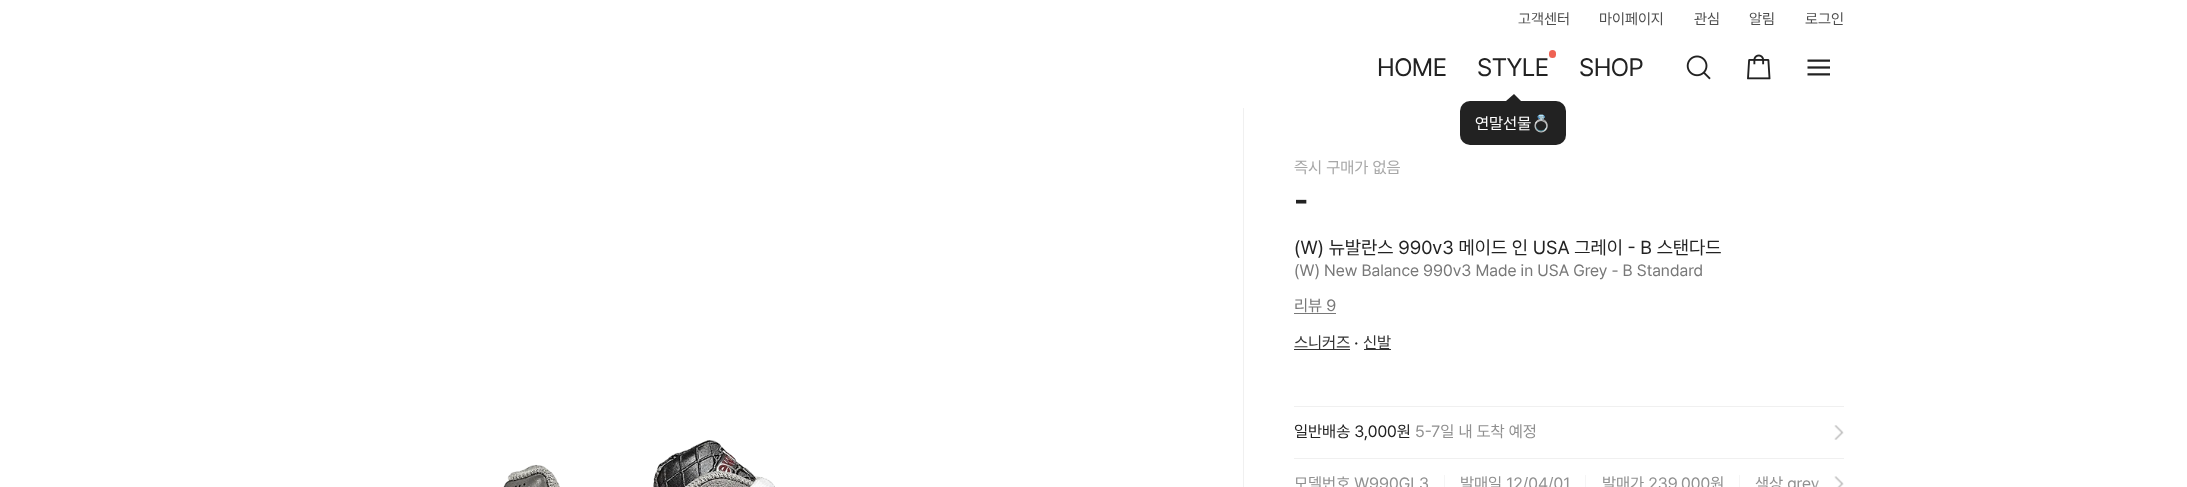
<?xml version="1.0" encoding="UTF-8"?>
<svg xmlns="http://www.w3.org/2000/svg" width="2187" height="487">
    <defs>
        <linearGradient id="g1" gradientUnits="userSpaceOnUse" x1="1814" y1="484" x2="1834" y2="484"><stop offset="0" stop-color="#FFFFFF" stop-opacity="0"/><stop offset="0.75" stop-color="#FFFFFF"/><stop offset="1" stop-color="#FFFFFF"/></linearGradient>
    </defs>
    <rect width="100%" height="100%" fill="#FFFFFF"/>
    <text x="1518" y="24" font-family="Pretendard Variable" font-size="15" fill="#4E4E4E">고객센터</text>
    <text x="1599" y="24" font-family="Pretendard Variable" font-size="15" fill="#4E4E4E">마이페이지</text>
    <text x="1694" y="24" font-family="Pretendard Variable" font-size="15" fill="#4E4E4E">관심</text>
    <text x="1749" y="24" font-family="Pretendard Variable" font-size="15" fill="#4E4E4E">알림</text>
    <text x="1805" y="24" font-family="Pretendard Variable" font-size="15" fill="#4E4E4E">로그인</text>
    <text x="1377" y="76" font-family="Pretendard Variable" font-size="25" letter-spacing="-0.5" fill="#222222">HOME</text>
    <rect x="1549" y="50" width="7" height="8" rx="3.5" fill="#EF6253"/>
    <text x="1477" y="76" font-family="Pretendard Variable" font-size="25" letter-spacing="-0.5" fill="#222222">STYLE</text>
    <text x="1579" y="76" font-family="Pretendard Variable" font-size="25" letter-spacing="-0.5" fill="#222222">SHOP</text>
    <path d="M 1521 101 H 1506 L 1514 94 Z" fill="#222222"/>
    <rect x="1460" y="101" width="106" height="44" rx="10" fill="#222222"/>
    <text x="1475" y="129" font-family="Pretendard Variable" font-size="16.25" fill="#FFFFFF">연말선물</text>
    <text x="1531" y="129" font-family="Noto Color Emoji" font-size="16.25" fill="#FFFFFF">💍</text>
    <image x="1686" y="55" width="25" height="25" href="img_01.png"/>
    <image x="1747" y="54" width="24" height="26" href="img_02.png"/>
    <image x="1807" y="59" width="23" height="17" href="img_03.png"/>
    <image x="503" y="440" width="272" height="47" href="img_04.png"/>
    <rect x="1243" y="108" width="1" height="379" fill="#F0F0F0"/>
    <text x="1294" y="173" font-family="Pretendard Variable" font-size="16.25" fill="#A7A7A7">즉시 구매가 없음</text>
    <text x="1294" y="211" font-family="Pretendard Variable" font-size="32" font-weight="700" fill="#222222">-</text>
    <text x="1294" y="254" font-family="Pretendard Variable" font-size="18.75" fill="#222222">(W) 뉴발란스 990v3 메이드 인 USA 그레이 - B 스탠다드</text>
    <text x="1294" y="276" font-family="Pretendard Variable" font-size="16.25" fill="#787878">(W) New Balance 990v3 Made in USA Grey - B Standard</text>
    <text x="1294" y="311" font-family="Pretendard Variable" font-size="16.25" fill="#787878">리뷰 9</text>
    <rect x="1294" y="313" width="42" height="1" fill="#787878"/>
    <rect x="1294" y="349" width="56" height="1" fill="#333333"/>
    <text x="1294" y="348" font-family="Pretendard Variable" font-size="16.25" fill="#333333">스니커즈</text>
    <text x="1354" y="349" font-family="Pretendard Variable" font-size="18" fill="#222222">·</text>
    <rect x="1364" y="349" width="27" height="1" fill="#333333"/>
    <text x="1363" y="348" font-family="Pretendard Variable" font-size="16.25" fill="#333333">신발</text>
    <rect x="1294" y="406" width="550" height="1" fill="#F0F0F0"/>
    <text x="1294" y="437" font-family="Pretendard Variable" font-size="16.25" fill="#222222">일반배송 3,000원</text>
    <text x="1415" y="437" font-family="Pretendard Variable" font-size="16.25" fill="#909090">5-7일 내 도착 예정</text>
    <image x="1834" y="425" width="10" height="15" href="img_05.png"/>
    <rect x="1294" y="458" width="550" height="1" fill="#F0F0F0"/>
    <text x="1294" y="489" font-family="Pretendard Variable" font-size="16.25" fill="#909090">모델번호 W990GL3</text>
    <rect x="1444" y="475" width="1" height="12" fill="#F5F5F5"/>
    <text x="1460" y="489" font-family="Pretendard Variable" font-size="16.25" fill="#909090">발매일 12/04/01</text>
    <rect x="1585" y="475" width="1" height="12" fill="#F5F5F5"/>
    <text x="1602" y="489" font-family="Pretendard Variable" font-size="16.25" fill="#909090">발매가 239,000원</text>
    <rect x="1739" y="475" width="1" height="12" fill="#F5F5F5"/>
    <text x="1755" y="489" font-family="Pretendard Variable" font-size="16.25" fill="#909090">색상 grey</text>
    <rect x="1814" y="480" width="5" height="7" fill="url(#g1)"/>
    <image x="1834" y="476" width="10" height="11" href="img_06.png"/>
</svg>
